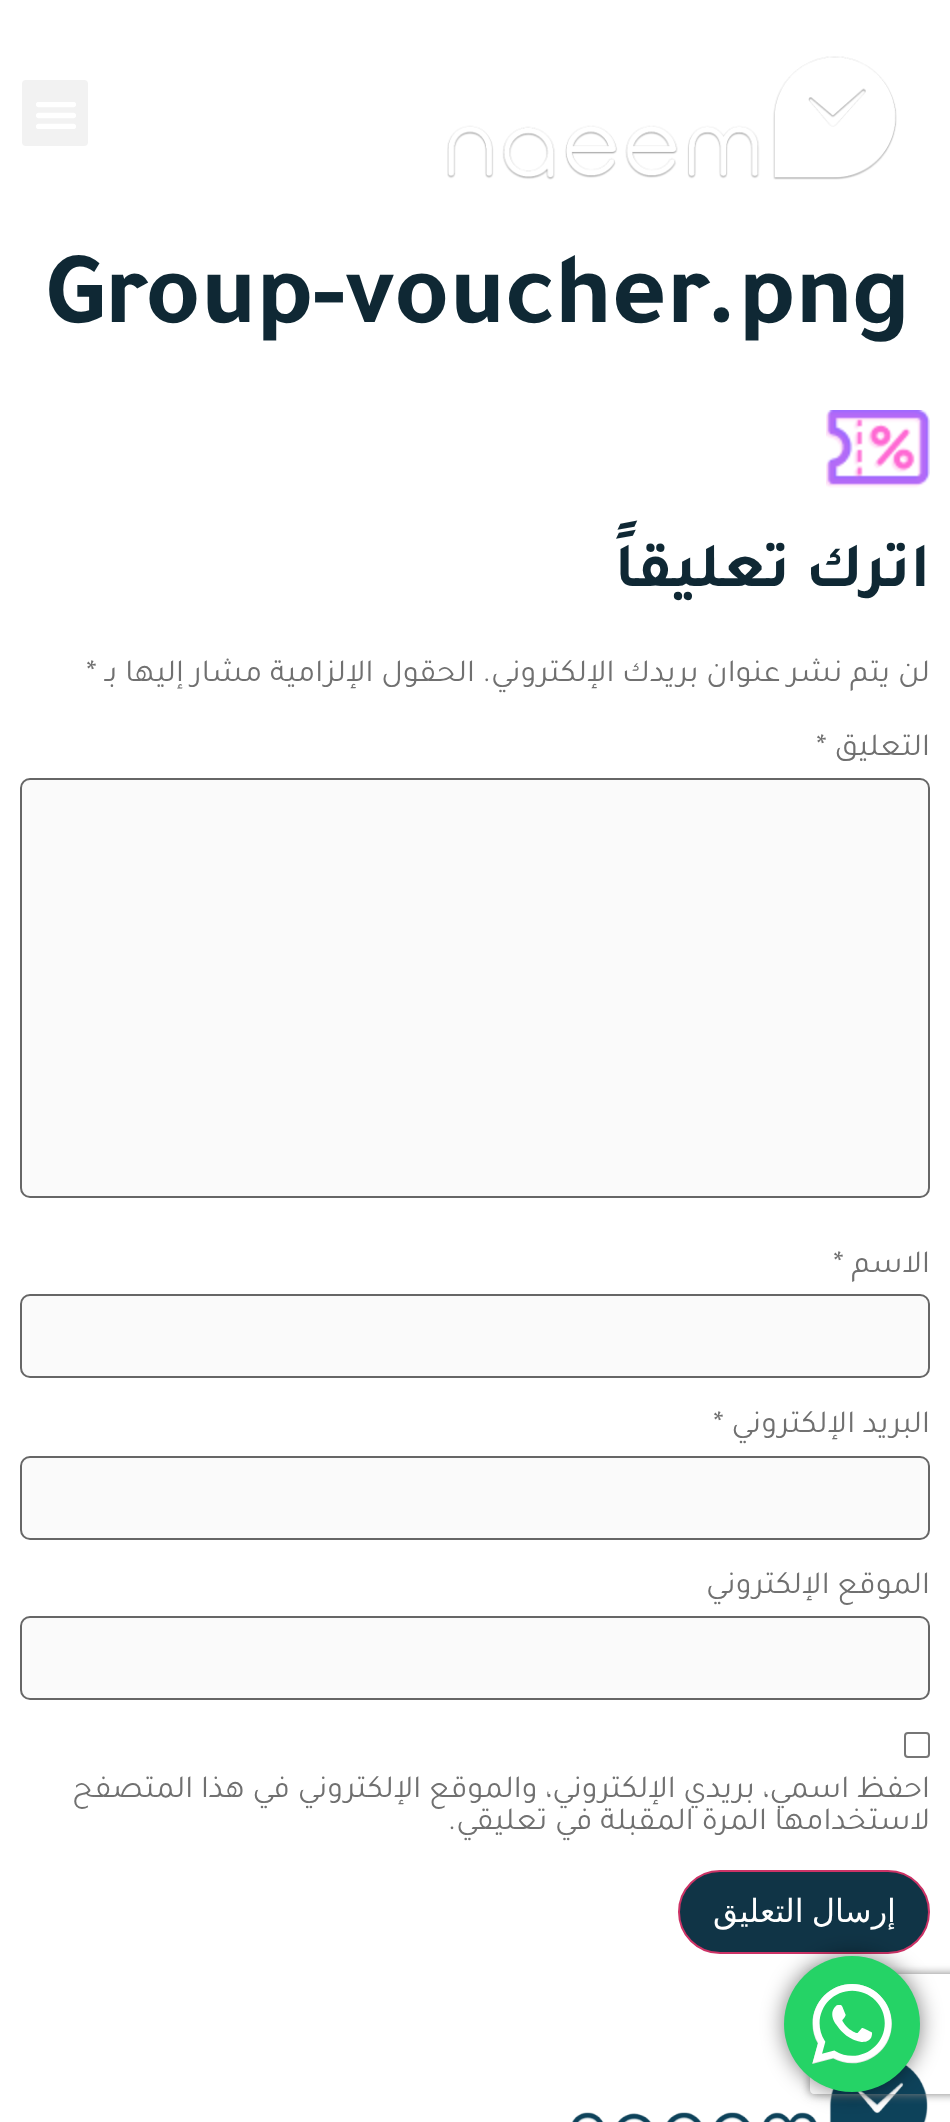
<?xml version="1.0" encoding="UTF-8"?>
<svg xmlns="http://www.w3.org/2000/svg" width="950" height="2122">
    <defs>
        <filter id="blur1" x="-50%" y="-200%" width="200%" height="500%"><feGaussianBlur stdDeviation="11"/></filter>
        <clipPath id="clip1"><path d="M 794 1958 H 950 V 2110 H 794 Z M 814 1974 H 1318 C 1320 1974 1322 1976 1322 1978 V 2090 C 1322 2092 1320 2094 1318 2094 H 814 C 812 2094 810 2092 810 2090 V 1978 C 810 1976 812 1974 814 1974 Z" clip-rule="evenodd"/></clipPath>
        <filter id="blur2" x="-50%" y="-200%" width="200%" height="500%"><feGaussianBlur stdDeviation="5"/></filter>
    </defs>
    <rect width="100%" height="100%" fill="#FFFFFF"/>
    <image x="447" y="56" width="450" height="124" href="img_01.png"/>
    <rect x="21" y="79" width="68" height="68" rx="5" fill="#F2F2F2" stroke="#FFFFFF" stroke-width="2"/>
    <image x="36" y="102" width="40" height="27" href="img_02.png"/>
    <text x="45" y="322" font-family="Tajawal" font-size="104" font-weight="700" fill="#0F2834">Group-voucher.png</text>
    <image x="826" y="410" width="104" height="78" href="img_03.png"/>
    <text x="930" y="586" font-family="Tajawal" font-size="64" font-weight="700" direction="rtl" fill="#0F2834">اترك تعليقاً</text>
    <text x="930" y="681" font-family="Tajawal" font-size="32" direction="rtl" fill="#707070">لن يتم نشر عنوان بريدك الإلكتروني.</text>
    <text x="475" y="681" font-family="Tajawal" font-size="32" direction="rtl" fill="#707070">الحقول الإلزامية مشار إليها بـ</text>
    <text x="86" y="681" font-family="Tajawal" font-size="32" fill="#707070">*</text>
    <text x="930" y="755" font-family="Tajawal" font-size="32" direction="rtl" fill="#707070">التعليق</text>
    <text x="816" y="755" font-family="Tajawal" font-size="32" fill="#707070">*</text>
    <rect x="21" y="779" width="908" height="418" rx="9" fill="#FAFAFA" stroke="#666666" stroke-width="2"/>
    <text x="930" y="1272" font-family="Tajawal" font-size="32" direction="rtl" fill="#707070">الاسم</text>
    <text x="833" y="1272" font-family="Tajawal" font-size="32" fill="#707070">*</text>
    <rect x="21" y="1295" width="908" height="82" rx="9" fill="#FAFAFA" stroke="#666666" stroke-width="2"/>
    <text x="930" y="1432" font-family="Tajawal" font-size="32" direction="rtl" fill="#707070">البريد الإلكتروني</text>
    <text x="713" y="1432" font-family="Tajawal" font-size="32" fill="#707070">*</text>
    <rect x="21" y="1457" width="908" height="82" rx="9" fill="#FAFAFA" stroke="#666666" stroke-width="2"/>
    <text x="930" y="1593" font-family="Tajawal" font-size="32" direction="rtl" fill="#707070">الموقع الإلكتروني</text>
    <rect x="21" y="1617" width="908" height="82" rx="9" fill="#FAFAFA" stroke="#666666" stroke-width="2"/>
    <rect x="905" y="1733" width="24" height="24" rx="3" fill="none" stroke="#767676" stroke-width="2"/>
    <text font-family="Tajawal" font-size="32" direction="rtl" fill="#707070">
        <tspan x="930" y="1797">احفظ اسمي، بريدي الإلكتروني، والموقع الإلكتروني في هذا المتصفح</tspan>
        <tspan x="930" y="1829">لاستخدامها المرة المقبلة في تعليقي.</tspan>
    </text>
    <rect x="679" y="1871" width="250" height="82" rx="41" fill="#103446" stroke="#CC3366" stroke-width="2"/>
    <text x="896" y="1922" word-spacing="-2" font-family="DejaVu Sans" font-size="32" direction="rtl" fill="#FFFFFF">إرسال التعليق</text>
    <image x="572" y="2065" width="356" height="57" href="img_05.png"/>
    <rect x="784" y="1956" width="136" height="136" rx="68" fill="#000000" fill-opacity="0.5" filter="url(#blur1)"/>
    <g clip-path="url(#clip1)">
        <rect x="810" y="1974" width="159" height="120" rx="4" fill="#808080" filter="url(#blur2)"/>
    </g>
    <circle cx="852" cy="2024" r="68" fill="#25D366"/>
    <image x="812" y="1984" width="80" height="80" href="img_04.png"/>
</svg>
